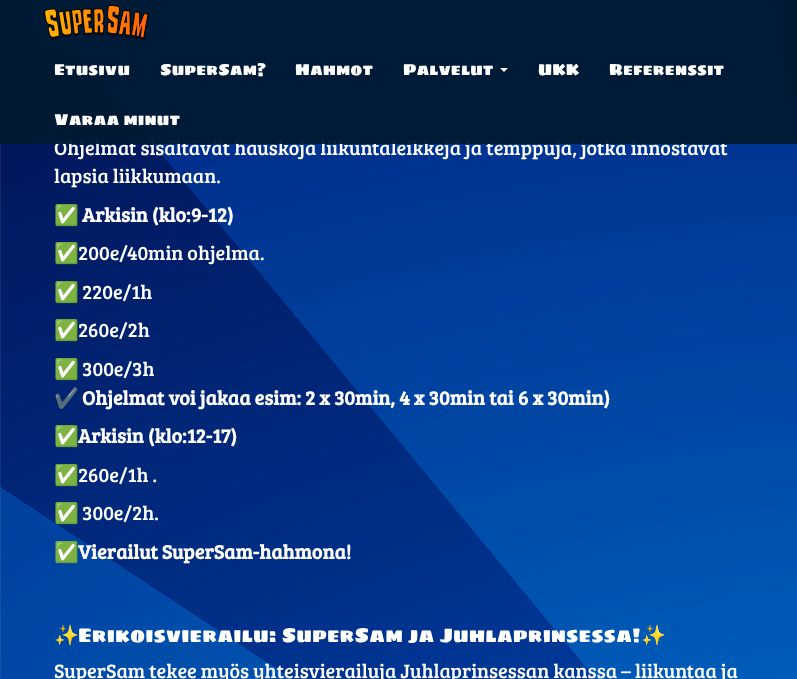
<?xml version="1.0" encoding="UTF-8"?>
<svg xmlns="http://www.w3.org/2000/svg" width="797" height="679">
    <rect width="100%" height="100%" fill="#FFFFFF"/>
    <image x="0" y="0" width="797" height="679" href="img_01.png"/>
    <text x="54" y="155" font-family="Bree Serif" font-size="20" fill="#FFFFFF">Ohjelmat sisältävät hauskoja liikuntaleikkejä ja temppuja, jotka innostavat</text>
    <rect x="0" y="0" width="797" height="144" fill="#001A33" fill-opacity="0.95"/>
    <image x="44" y="5" width="105" height="35" href="img_02.png"/>
    <text x="54" y="75" font-family="Sigmar One" font-size="16" fill="#FFFFFF">Etusivu</text>
    <text x="160" y="75" font-family="Sigmar One" font-size="16" fill="#FFFFFF">SuperSam?</text>
    <text x="295" y="75" font-family="Sigmar One" font-size="16" fill="#FFFFFF">Hahmot</text>
    <text x="403" y="75" font-family="Sigmar One" font-size="16" fill="#FFFFFF">Palvelut</text>
    <path d="M 500 68 H 508 L 504 72 Z" fill="#FFFFFF"/>
    <text x="538" y="75" font-family="Sigmar One" font-size="16" fill="#FFFFFF">UKK</text>
    <text x="609" y="75" font-family="Sigmar One" font-size="16" fill="#FFFFFF">Referenssit</text>
    <text x="54" y="125" font-family="Sigmar One" font-size="16" fill="#FFFFFF">Varaa minut</text>
    <text x="54" y="183" font-family="Bree Serif" font-size="20" fill="#FFFFFF">lapsia liikkumaan.</text>
    <text x="54" y="222" font-family="Noto Color Emoji" font-size="20" fill="#FFFFFF">✅</text>
    <text x="82" y="222" font-family="Bree Serif" font-size="20" font-weight="700" fill="#FFFFFF">Arkisin (klo:9-12)</text>
    <text x="54" y="260" font-family="Noto Color Emoji" font-size="20" fill="#FFFFFF">✅</text>
    <text x="78" y="260" font-family="Bree Serif" font-size="20" fill="#FFFFFF">200e/40min ohjelma.</text>
    <text x="54" y="299" font-family="Noto Color Emoji" font-size="20" fill="#FFFFFF">✅</text>
    <text x="82" y="299" font-family="Bree Serif" font-size="20" fill="#FFFFFF">220e/1h</text>
    <text x="54" y="337" font-family="Noto Color Emoji" font-size="20" fill="#FFFFFF">✅</text>
    <text x="78" y="337" font-family="Bree Serif" font-size="20" fill="#FFFFFF">260e/2h</text>
    <text x="54" y="376" font-family="Noto Color Emoji" font-size="20" fill="#FFFFFF">✅</text>
    <text x="82" y="376" font-family="Bree Serif" font-size="20" fill="#FFFFFF">300e/3h</text>
    <text x="54" y="405" font-family="Noto Color Emoji" font-size="20" font-weight="700" fill="#FFFFFF">✔️</text>
    <text x="82" y="405" font-family="Bree Serif" font-size="20" font-weight="700" fill="#FFFFFF">Ohjelmat voi jakaa esim: 2 x 30min, 4 x 30min tai 6 x 30min)</text>
    <text x="54" y="443" font-family="Noto Color Emoji" font-size="20" fill="#FFFFFF">✅</text>
    <text x="78" y="443" font-family="Bree Serif" font-size="20" font-weight="700" fill="#FFFFFF">Arkisin (klo:12-17)</text>
    <text x="54" y="482" font-family="Noto Color Emoji" font-size="20" fill="#FFFFFF">✅</text>
    <text x="78" y="482" font-family="Bree Serif" font-size="20" fill="#FFFFFF">260e/1h .</text>
    <text x="54" y="520" font-family="Noto Color Emoji" font-size="20" fill="#FFFFFF">✅</text>
    <text x="82" y="520" font-family="Bree Serif" font-size="20" fill="#FFFFFF">300e/2h.</text>
    <text x="54" y="559" font-family="Noto Color Emoji" font-size="20" fill="#FFFFFF">✅</text>
    <text x="78" y="559" font-family="Bree Serif" font-size="20" font-weight="700" fill="#FFFFFF">Vierailut SuperSam-hahmona!</text>
    <text x="54" y="642" font-family="Noto Color Emoji" font-size="20" fill="#FFFFFF">✨</text>
    <text x="78" y="642" font-family="Sigmar One" font-size="20" fill="#FFFFFF">Erikoisvierailu: SuperSam ja Juhlaprinsessa!</text>
    <text x="641" y="642" font-family="Noto Color Emoji" font-size="20" fill="#FFFFFF">✨</text>
    <text x="54" y="678" font-family="Bree Serif" font-size="20" fill="#FFFFFF">SuperSam tekee myös yhteisvierailuja Juhlaprinsessan kanssa – liikuntaa ja</text>
</svg>
